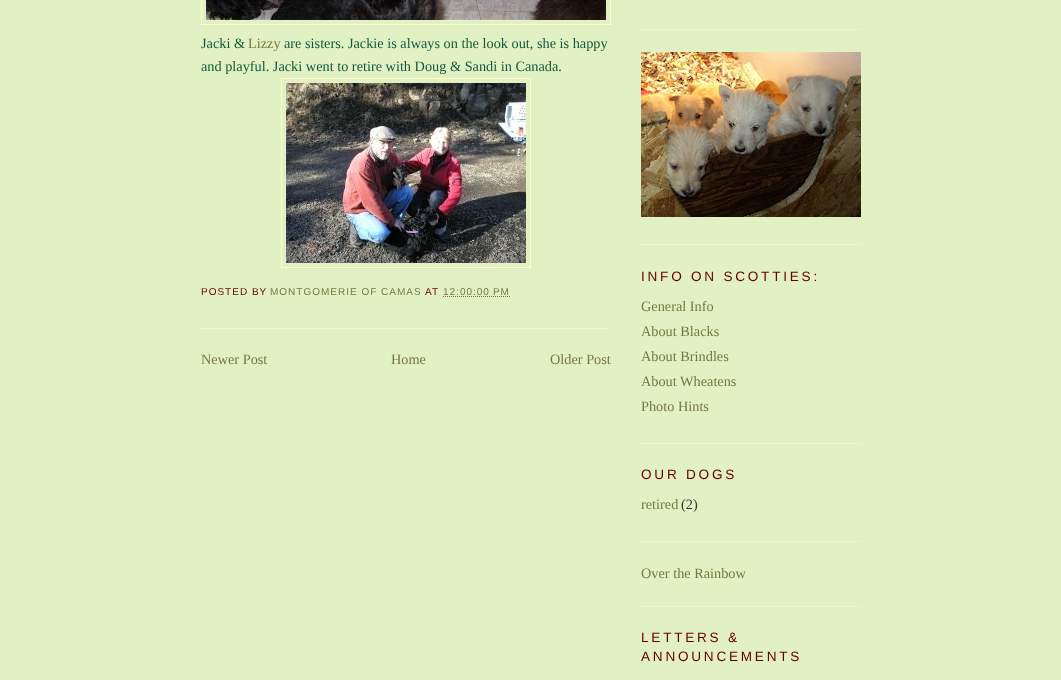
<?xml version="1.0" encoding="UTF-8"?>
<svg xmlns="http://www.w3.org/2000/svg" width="1061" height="680">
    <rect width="100%" height="100%" fill="#E2F1C3"/>
    <path d="M 201 328.5 H 611" fill="none" stroke="#FFFFCC" stroke-dasharray="1 1"/>
    <rect x="201.5" y="-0.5" width="409" height="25" fill="none" stroke="#FFFFCC"/>
    <image x="206" y="0" width="400" height="20" href="img_01.png"/>
    <text x="201" y="48" font-family="Liberation Serif" font-size="14.3" fill="#11593C">Jacki &amp;</text>
    <text x="248" y="48" font-family="Liberation Serif" font-size="14.3" fill="#777744">Lizzy</text>
    <text x="284" y="48" font-family="Liberation Serif" font-size="14.3" fill="#11593C">are sisters. Jackie is always on the look out, she is happy</text>
    <text x="201" y="71" font-family="Liberation Serif" font-size="14.3" fill="#11593C">and playful. Jacki went to retire with Doug &amp; Sandi in Canada.</text>
    <rect x="281.5" y="78.5" width="249" height="189" fill="none" stroke="#FFFFCC"/>
    <image x="286" y="83" width="240" height="180" href="img_02.png"/>
    <text x="201" y="295" font-family="Liberation Sans" font-size="10" letter-spacing="1" fill="#660000">POSTED BY</text>
    <text x="270" y="295" font-family="Liberation Sans" font-size="10" letter-spacing="1" fill="#777744">MONTGOMERIE OF CAMAS</text>
    <text x="425" y="295" font-family="Liberation Sans" font-size="10" letter-spacing="1" fill="#660000">AT</text>
    <text x="443" y="295" font-family="Liberation Sans" font-size="10" letter-spacing="1" fill="#777744">12:00:00 PM</text>
    <path d="M 443 296.5 H 510" fill="none" stroke="#777744" stroke-dasharray="1 1"/>
    <text x="201" y="364" font-family="Liberation Serif" font-size="14.3" fill="#777744">Newer Post</text>
    <text x="391" y="364" font-family="Liberation Serif" font-size="14.3" fill="#777744">Home</text>
    <text x="550" y="364" font-family="Liberation Serif" font-size="14.3" fill="#777744">Older Post</text>
    <path d="M 641 29.5 H 861" fill="none" stroke="#FFFFCC" stroke-dasharray="1 1"/>
    <path d="M 641 244.5 H 861" fill="none" stroke="#FFFFCC" stroke-dasharray="1 1"/>
    <image x="641" y="52" width="220" height="165" href="img_03.png"/>
    <path d="M 641 443.5 H 861" fill="none" stroke="#FFFFCC" stroke-dasharray="1 1"/>
    <text x="641" y="281" font-family="Liberation Sans" font-size="13.6" letter-spacing="2.75" fill="#660000">INFO ON SCOTTIES:</text>
    <text font-family="Liberation Serif" font-size="14.3" fill="#777744">
        <tspan x="641" y="311">General Info</tspan>
        <tspan x="641" y="336">About Blacks</tspan>
        <tspan x="641" y="361">About Brindles</tspan>
        <tspan x="641" y="386">About Wheatens</tspan>
        <tspan x="641" y="411">Photo Hints</tspan>
    </text>
    <path d="M 641 541.5 H 861" fill="none" stroke="#FFFFCC" stroke-dasharray="1 1"/>
    <text x="641" y="479" font-family="Liberation Sans" font-size="13.6" letter-spacing="2.75" fill="#660000">OUR DOGS</text>
    <text x="641" y="509" font-family="Liberation Serif" font-size="14.3" fill="#777744">retired</text>
    <text x="681" y="509" font-family="Liberation Serif" font-size="14.3" fill="#333333">(2)</text>
    <path d="M 641 606.5 H 861" fill="none" stroke="#FFFFCC" stroke-dasharray="1 1"/>
    <text x="641" y="578" font-family="Liberation Serif" font-size="14.3" fill="#777744">Over the Rainbow</text>
    <text font-family="Liberation Sans" font-size="13.6" letter-spacing="2.75" fill="#660000">
        <tspan x="641" y="642">LETTERS &amp;</tspan>
        <tspan x="641" y="661">ANNOUNCEMENTS</tspan>
    </text>
</svg>
